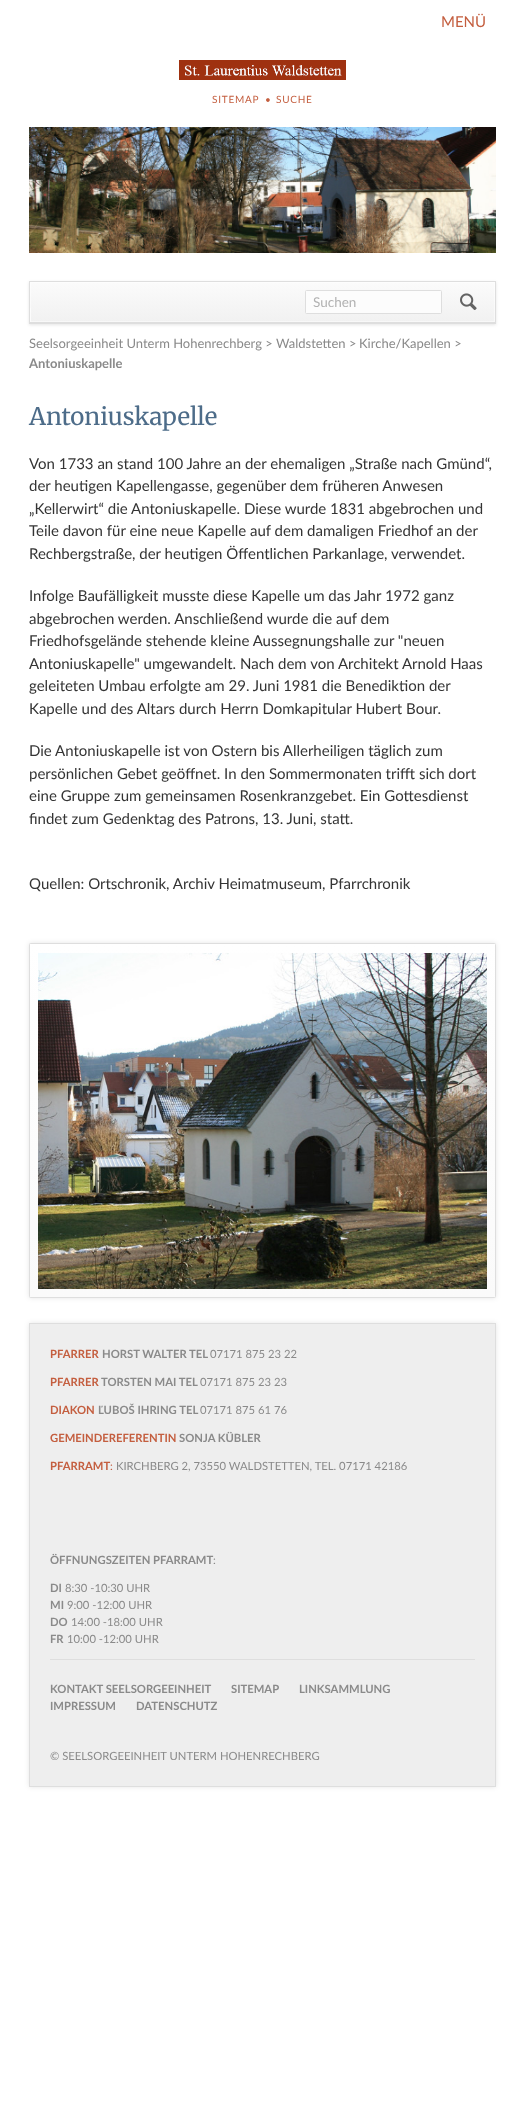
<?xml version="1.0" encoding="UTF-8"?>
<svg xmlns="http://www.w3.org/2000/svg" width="525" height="2118">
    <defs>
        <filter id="blur1" x="-50%" y="-200%" width="200%" height="500%"><feGaussianBlur stdDeviation="1.5"/></filter>
        <linearGradient id="g1" gradientUnits="userSpaceOnUse" x1="263" y1="282" x2="263" y2="322"><stop offset="0" stop-color="#FBFBFB"/><stop offset="1" stop-color="#F1F1F1"/></linearGradient>
        <filter id="blur2" x="-50%" y="-200%" width="200%" height="500%"><feGaussianBlur stdDeviation="2.5"/></filter>
        <linearGradient id="g2" gradientUnits="userSpaceOnUse" x1="263" y1="944" x2="263" y2="1297"><stop offset="0" stop-color="#FFFFFF"/><stop offset="1" stop-color="#FAFAFA"/></linearGradient>
    </defs>
    <rect width="100%" height="100%" fill="#FFFFFF"/>
    <text x="441" y="27" font-family="Lato" font-size="15" fill="#C45E3F">MENÜ</text>
    <image x="179" y="60" width="167" height="20" href="img_01.png"/>
    <text x="212" y="103" font-family="Lato" font-size="10" letter-spacing="0.75" fill="#C45E3F">SITEMAP</text>
    <text x="265" y="103" font-family="Lato" font-size="10" letter-spacing="0.75" fill="#C45E3F">•</text>
    <text x="276" y="103" font-family="Lato" font-size="10" letter-spacing="0.75" fill="#C45E3F">SUCHE</text>
    <image x="29" y="127" width="467" height="126" href="img_02.png"/>
    <rect x="29" y="282" width="467" height="43" fill="#000000" fill-opacity="0.1" filter="url(#blur1)"/>
    <rect x="29.5" y="281.5" width="466" height="42" fill="none" stroke="#DEDEDE"/>
    <rect x="30" y="282" width="465" height="40" fill="url(#g1)"/>
    <rect x="30.5" y="282.5" width="464" height="39" fill="none" stroke="#FFFFFF" stroke-opacity="0.5"/>
    <rect x="30" y="308" width="1" height="14" fill="#FFFFFF" fill-opacity="0.5"/>
    <rect x="30" y="322" width="465" height="1" fill="#DEDEDE"/>
    <rect x="305.5" y="290.5" width="136" height="23" rx="1" fill="#FCFCFC" stroke="#DEDEDE"/>
    <text x="313" y="307" font-family="Lato" font-size="13.5" fill="#B1B1B1">Suchen</text>
    <image x="460" y="293" width="17" height="17" href="img_03.png"/>
    <text x="29" y="348" font-family="Lato" font-size="13" fill="#8A8A8A">Seelsorgeeinheit Unterm Hohenrechberg &gt;</text>
    <text x="276" y="348" font-family="Lato" font-size="13" fill="#8A8A8A">Waldstetten &gt;</text>
    <text x="359" y="348" font-family="Lato" font-size="13" fill="#8A8A8A">Kirche/Kapellen &gt;</text>
    <text x="29" y="368" font-family="Lato" font-size="13" font-weight="700" fill="#8A8A8A">Antoniuskapelle</text>
    <text x="29" y="425" font-family="Merriweather" font-size="24" fill="#4D6C89">Antoniuskapelle</text>
    <text font-family="Lato" font-size="15" fill="#343434">
        <tspan x="29" y="469">Von 1733 an stand 100 Jahre an der ehemaligen „Straße nach Gmünd“,</tspan>
        <tspan x="29" y="491">der heutigen Kapellengasse, gegenüber dem früheren Anwesen</tspan>
        <tspan x="29" y="514">„Kellerwirt“ die Antoniuskapelle. Diese wurde 1831 abgebrochen und</tspan>
        <tspan x="29" y="536">Teile davon für eine neue Kapelle auf dem damaligen Friedhof an der</tspan>
        <tspan x="29" y="559">Rechbergstraße, der heutigen Öffentlichen Parkanlage, verwendet.</tspan>
    </text>
    <text font-family="Lato" font-size="15" fill="#343434">
        <tspan x="29" y="601">Infolge Baufälligkeit musste diese Kapelle um das Jahr 1972 ganz</tspan>
        <tspan x="29" y="624">abgebrochen werden. Anschließend wurde die auf dem</tspan>
        <tspan x="29" y="646">Friedhofsgelände stehende kleine Aussegnungshalle zur "neuen</tspan>
        <tspan x="29" y="669">Antoniuskapelle" umgewandelt. Nach dem von Architekt Arnold Haas</tspan>
        <tspan x="29" y="691">geleiteten Umbau erfolgte am 29. Juni 1981 die Benediktion der</tspan>
        <tspan x="29" y="714">Kapelle und des Altars durch Herrn Domkapitular Hubert Bour.</tspan>
    </text>
    <text font-family="Lato" font-size="15" fill="#343434">
        <tspan x="29" y="756">Die Antoniuskapelle ist von Ostern bis Allerheiligen täglich zum</tspan>
        <tspan x="29" y="779">persönlichen Gebet geöffnet. In den Sommermonaten trifft sich dort</tspan>
        <tspan x="29" y="801">eine Gruppe zum gemeinsamen Rosenkranzgebet. Ein Gottesdienst</tspan>
        <tspan x="29" y="824">findet zum Gedenktag des Patrons, 13. Juni, statt.</tspan>
    </text>
    <text x="29" y="889" font-family="Lato" font-size="15" fill="#343434">Quellen: Ortschronik, Archiv Heimatmuseum, Pfarrchronik</text>
    <rect x="29" y="943" width="467" height="355" rx="1.5" fill="#000000" fill-opacity="0.1" filter="url(#blur2)"/>
    <rect x="29" y="944" width="467" height="353" fill="url(#g2)"/>
    <rect x="29.5" y="943.5" width="466" height="354" rx="1" fill="none" stroke="#DEDEDE"/>
    <image x="38" y="953" width="449" height="336" href="img_04.png"/>
    <rect x="29" y="1323" width="467" height="464" fill="#000000" fill-opacity="0.1" filter="url(#blur2)"/>
    <rect x="29.5" y="1323.5" width="466" height="463" fill="#EEEEEE" stroke="#DEDEDE"/>
    <text x="50" y="1358" font-family="Lato" font-size="11.25" font-weight="700" fill="#C45E3F">PFARRER</text>
    <text x="102" y="1358" font-family="Lato" font-size="11.25" font-weight="700" fill="#8A8A8A">HORST WALTER TEL</text>
    <text x="210" y="1358" font-family="Lato" font-size="11.25" fill="#8A8A8A">07171 875 23 22</text>
    <text x="50" y="1386" font-family="Lato" font-size="11.25" font-weight="700" fill="#C45E3F">PFARRER</text>
    <text x="101" y="1386" font-family="Lato" font-size="11.25" font-weight="700" fill="#8A8A8A">TORSTEN MAI TEL</text>
    <text x="200" y="1386" font-family="Lato" font-size="11.25" fill="#8A8A8A">07171 875 23 23</text>
    <text x="50" y="1414" font-family="Lato" font-size="11.25" font-weight="700" fill="#C45E3F">DIAKON</text>
    <text x="98" y="1414" font-family="Lato" font-size="11.25" font-weight="700" fill="#8A8A8A">ĽUBOŠ IHRING TEL</text>
    <text x="200" y="1414" font-family="Lato" font-size="11.25" fill="#8A8A8A">07171 875 61 76</text>
    <text x="50" y="1442" font-family="Lato" font-size="11.25" font-weight="700" fill="#C45E3F">GEMEINDEREFERENTIN</text>
    <text x="179" y="1442" font-family="Lato" font-size="11.25" font-weight="700" fill="#8A8A8A">SONJA KÜBLER</text>
    <text x="50" y="1470" font-family="Lato" font-size="11.25" font-weight="700" fill="#C45E3F">PFARRAMT</text>
    <text x="110" y="1470" font-family="Lato" font-size="11.25" fill="#C45E3F">:</text>
    <text x="116" y="1470" font-family="Lato" font-size="11.25" fill="#8A8A8A">KIRCHBERG 2, 73550 WALDSTETTEN, TEL. 07171 42186</text>
    <text x="50" y="1564" font-family="Lato" font-size="11.25" font-weight="700" fill="#8A8A8A">ÖFFNUNGSZEITEN PFARRAMT</text>
    <text x="213" y="1564" font-family="Lato" font-size="11.25" fill="#8A8A8A">:</text>
    <text x="50" y="1592" font-family="Lato" font-size="11.25" font-weight="700" fill="#8A8A8A">DI</text>
    <text x="65" y="1592" font-family="Lato" font-size="11.25" fill="#8A8A8A">8:30 -10:30 UHR</text>
    <text x="50" y="1609" font-family="Lato" font-size="11.25" font-weight="700" fill="#8A8A8A">MI</text>
    <text x="67" y="1609" font-family="Lato" font-size="11.25" fill="#8A8A8A">9:00 -12:00 UHR</text>
    <text x="50" y="1626" font-family="Lato" font-size="11.25" font-weight="700" fill="#8A8A8A">DO</text>
    <text x="71" y="1626" font-family="Lato" font-size="11.25" fill="#8A8A8A">14:00 -18:00 UHR</text>
    <text x="50" y="1643" font-family="Lato" font-size="11.25" font-weight="700" fill="#8A8A8A">FR</text>
    <text x="67" y="1643" font-family="Lato" font-size="11.25" fill="#8A8A8A">10:00 -12:00 UHR</text>
    <rect x="50" y="1659" width="425" height="1" fill="#DEDEDE"/>
    <text x="50" y="1693" font-family="Lato" font-size="11.25" font-weight="700" fill="#8A8A8A">KONTAKT SEELSORGEEINHEIT</text>
    <text x="231" y="1693" font-family="Lato" font-size="11.25" font-weight="700" fill="#8A8A8A">SITEMAP</text>
    <text x="299" y="1693" font-family="Lato" font-size="11.25" font-weight="700" fill="#8A8A8A">LINKSAMMLUNG</text>
    <text x="50" y="1710" font-family="Lato" font-size="11.25" font-weight="700" fill="#8A8A8A">IMPRESSUM</text>
    <text x="136" y="1710" font-family="Lato" font-size="11.25" font-weight="700" fill="#8A8A8A">DATENSCHUTZ</text>
    <text x="50" y="1760" font-family="Lato" font-size="11.25" fill="#8A8A8A">© SEELSORGEEINHEIT UNTERM HOHENRECHBERG</text>
</svg>
